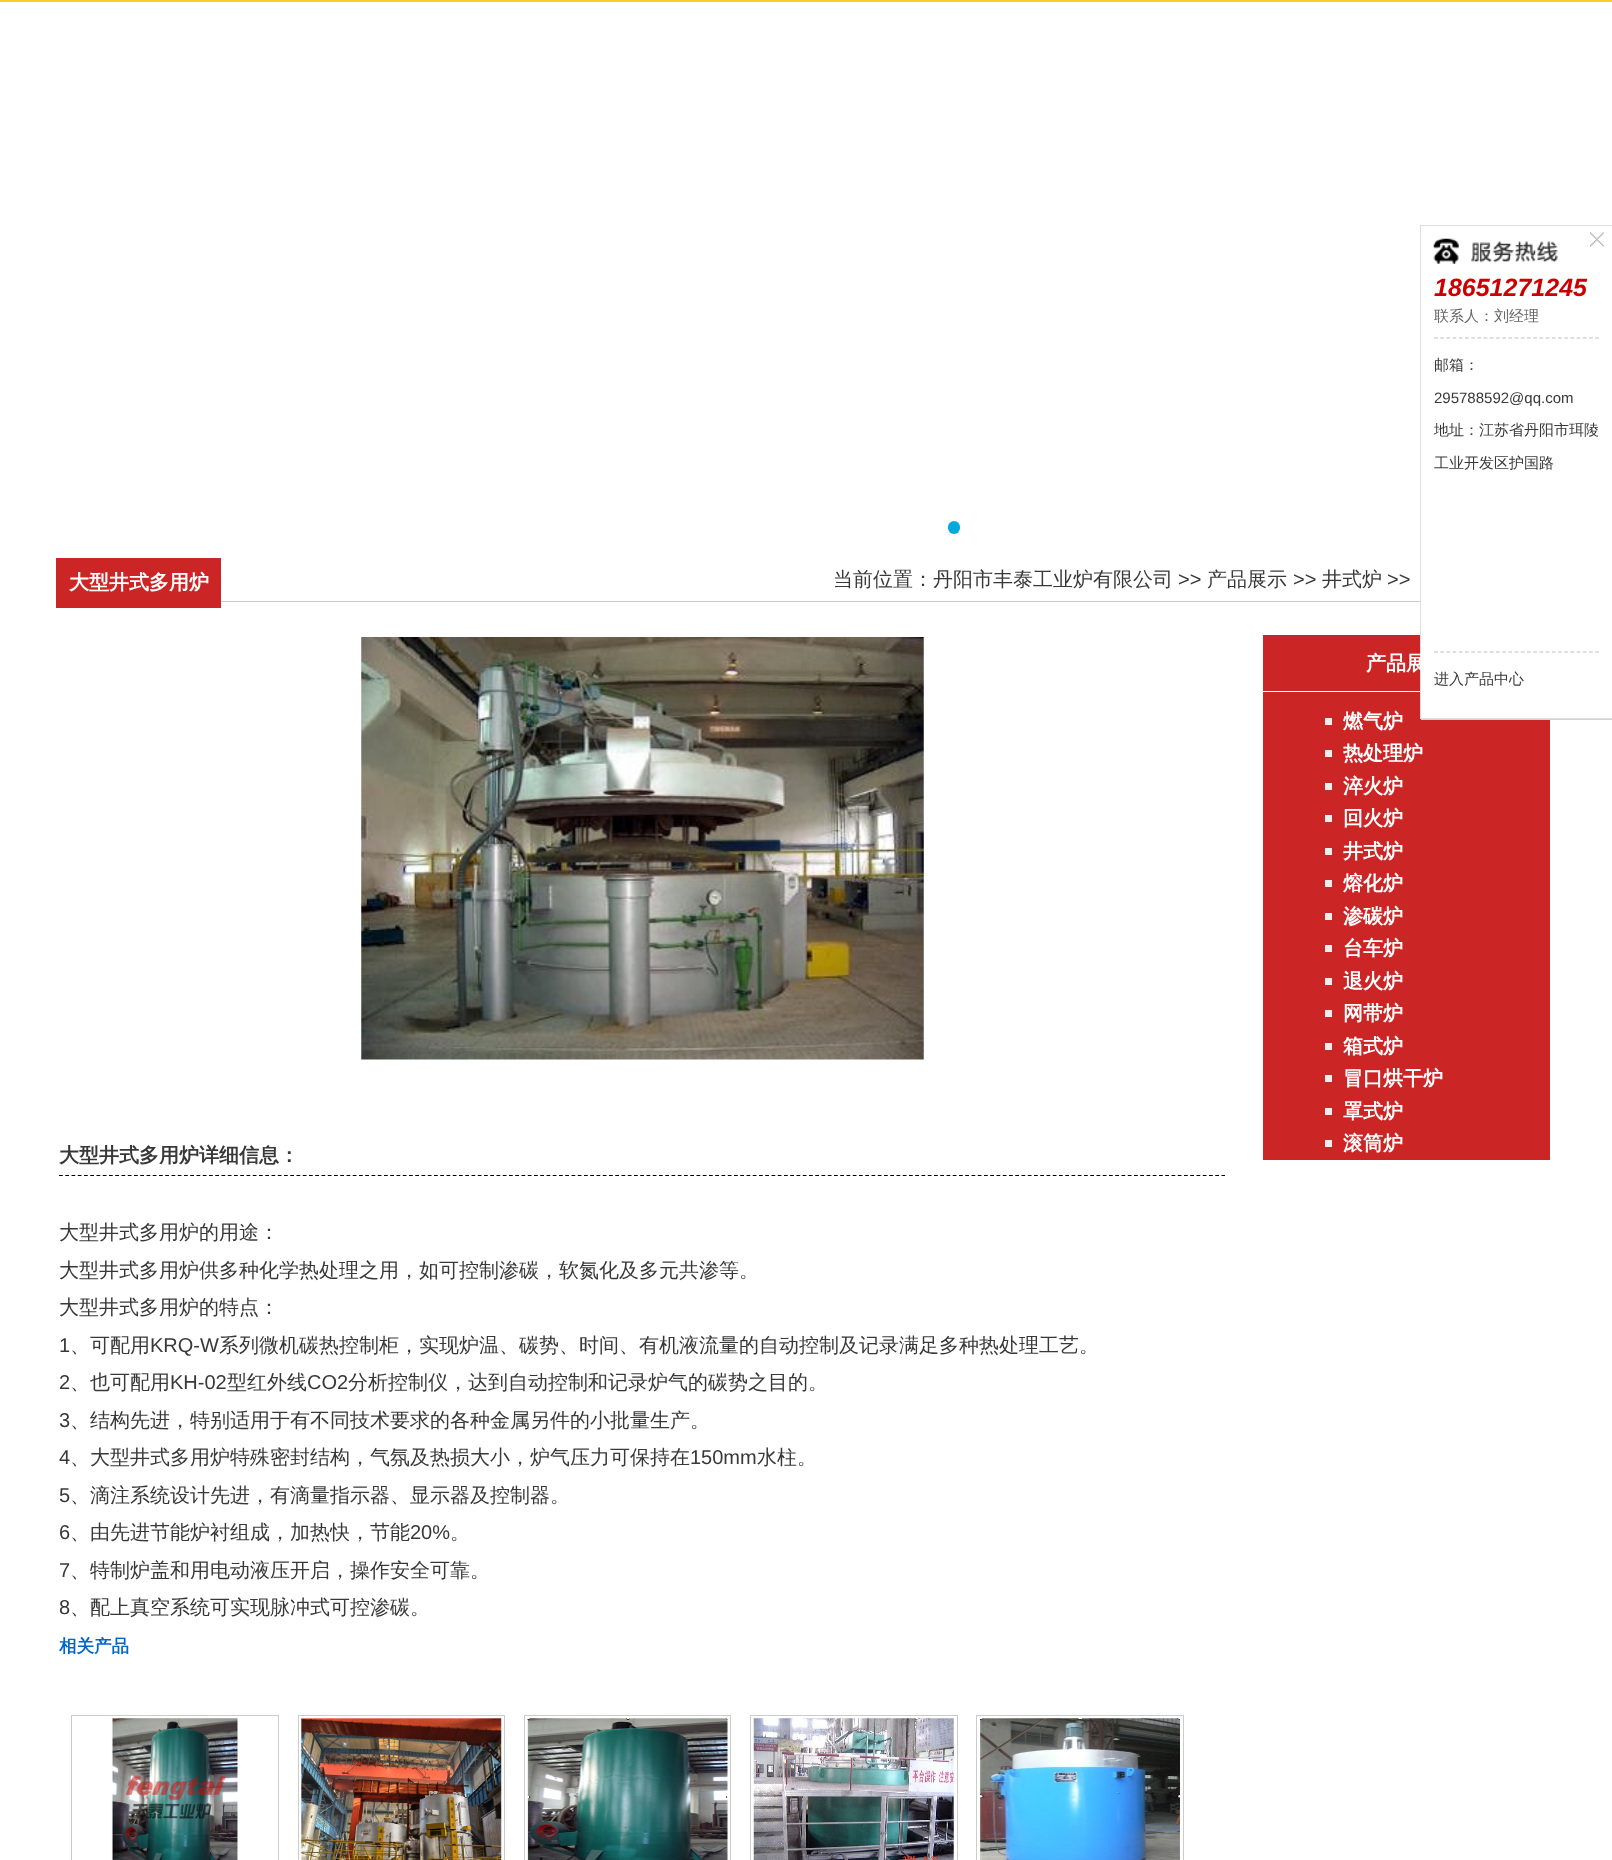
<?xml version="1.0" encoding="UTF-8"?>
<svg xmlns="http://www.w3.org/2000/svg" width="1612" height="1860">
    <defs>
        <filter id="blur1" x="-50%" y="-200%" width="200%" height="500%"><feGaussianBlur stdDeviation="0.5"/></filter>
    </defs>
    <rect width="100%" height="100%" fill="#FFFFFF"/>
    <rect x="0" y="0" width="1612" height="2" fill="#FFCD28"/>
    <rect x="948" y="521" width="12" height="13" rx="6" fill="#02AADB"/>
    <rect x="221" y="601" width="1199" height="1" fill="#CCCCCC"/>
    <rect x="1263" y="635" width="157" height="58" fill="#CC2525"/>
    <rect x="1263" y="691" width="157" height="1" fill="#FFFFFF"/>
    <rect x="1263" y="693" width="287" height="467" fill="#CC2525"/>
    <rect x="1421" y="226" width="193" height="494" fill="#D4D4D4" filter="url(#blur1)"/>
    <rect x="1420.5" y="225.5" width="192" height="493" fill="#FFFFFF" stroke="#DDDDDD"/>
    <image x="1433" y="238" width="125" height="26" href="img_01.png"/>
    <image x="1590" y="232" width="14" height="15" href="img_02.png"/>
    <text x="1434" y="296" font-family="Liberation Sans" font-size="25" font-weight="700" font-style="italic" fill="#CC0000">18651271245</text>
    <text x="1434" y="321" font-family="WenQuanYi Zen Hei" font-size="15" font-weight="500" fill="#666666">联系人：刘经理</text>
    <path d="M 1434 338 H 1599" fill="none" stroke="#C0C0C0" stroke-width="1.2" stroke-dasharray="3.75 2.45"/>
    <text x="1434" y="370" font-family="WenQuanYi Zen Hei" font-size="15" font-weight="500" fill="#383838">邮箱：</text>
    <text x="1434" y="403" font-family="Liberation Sans" font-size="15" fill="#383838">295788592@qq.com</text>
    <text x="1434" y="435" font-family="WenQuanYi Zen Hei" font-size="15" font-weight="500" fill="#383838">地址：江苏省丹阳市珥陵</text>
    <text x="1434" y="468" font-family="WenQuanYi Zen Hei" font-size="15" font-weight="500" fill="#383838">工业开发区护国路</text>
    <path d="M 1434 652 H 1599" fill="none" stroke="#C0C0C0" stroke-width="1.2" stroke-dasharray="3.75 2.45"/>
    <text x="1434" y="684" font-family="WenQuanYi Zen Hei" font-size="15" font-weight="500" fill="#383838">进入产品中心</text>
    <rect x="56" y="558" width="165" height="50" fill="#CC2525"/>
    <text x="69" y="589" font-family="WenQuanYi Zen Hei" font-size="20" font-weight="700" fill="#FFFFFF">大型井式多用炉</text>
    <text x="833" y="586" font-family="WenQuanYi Zen Hei" font-size="20" font-weight="500" fill="#383838">当前位置：丹阳市丰泰工业炉有限公司</text>
    <text x="1178" y="586" font-family="Liberation Sans" font-size="20" fill="#383838">&gt;&gt;</text>
    <text x="1207" y="586" font-family="WenQuanYi Zen Hei" font-size="20" font-weight="500" fill="#383838">产品展示</text>
    <text x="1293" y="586" font-family="Liberation Sans" font-size="20" fill="#383838">&gt;&gt;</text>
    <text x="1322" y="586" font-family="WenQuanYi Zen Hei" font-size="20" font-weight="500" fill="#383838">井式炉</text>
    <text x="1387" y="586" font-family="Liberation Sans" font-size="20" fill="#383838">&gt;&gt;</text>
    <text x="1366" y="670" font-family="WenQuanYi Zen Hei" font-size="20" font-weight="700" fill="#FFFFFF">产品展</text>
    <rect x="1325" y="718" width="7" height="7" fill="#EEEEEE"/>
    <text x="1343" y="728" font-family="WenQuanYi Zen Hei" font-size="20" font-weight="700" fill="#FFFFFF">燃气炉</text>
    <rect x="1325" y="750" width="7" height="7" fill="#EEEEEE"/>
    <text x="1343" y="760" font-family="WenQuanYi Zen Hei" font-size="20" font-weight="700" fill="#FFFFFF">热处理炉</text>
    <rect x="1325" y="783" width="7" height="7" fill="#EEEEEE"/>
    <text x="1343" y="793" font-family="WenQuanYi Zen Hei" font-size="20" font-weight="700" fill="#FFFFFF">淬火炉</text>
    <rect x="1325" y="815" width="7" height="7" fill="#EEEEEE"/>
    <text x="1343" y="825" font-family="WenQuanYi Zen Hei" font-size="20" font-weight="700" fill="#FFFFFF">回火炉</text>
    <rect x="1325" y="848" width="7" height="7" fill="#EEEEEE"/>
    <text x="1343" y="858" font-family="WenQuanYi Zen Hei" font-size="20" font-weight="700" fill="#FFFFFF">井式炉</text>
    <rect x="1325" y="880" width="7" height="7" fill="#EEEEEE"/>
    <text x="1343" y="890" font-family="WenQuanYi Zen Hei" font-size="20" font-weight="700" fill="#FFFFFF">熔化炉</text>
    <rect x="1325" y="913" width="7" height="7" fill="#EEEEEE"/>
    <text x="1343" y="923" font-family="WenQuanYi Zen Hei" font-size="20" font-weight="700" fill="#FFFFFF">渗碳炉</text>
    <rect x="1325" y="945" width="7" height="7" fill="#EEEEEE"/>
    <text x="1343" y="955" font-family="WenQuanYi Zen Hei" font-size="20" font-weight="700" fill="#FFFFFF">台车炉</text>
    <rect x="1325" y="978" width="7" height="7" fill="#EEEEEE"/>
    <text x="1343" y="988" font-family="WenQuanYi Zen Hei" font-size="20" font-weight="700" fill="#FFFFFF">退火炉</text>
    <rect x="1325" y="1010" width="7" height="7" fill="#EEEEEE"/>
    <text x="1343" y="1020" font-family="WenQuanYi Zen Hei" font-size="20" font-weight="700" fill="#FFFFFF">网带炉</text>
    <rect x="1325" y="1043" width="7" height="7" fill="#EEEEEE"/>
    <text x="1343" y="1053" font-family="WenQuanYi Zen Hei" font-size="20" font-weight="700" fill="#FFFFFF">箱式炉</text>
    <rect x="1325" y="1075" width="7" height="7" fill="#EEEEEE"/>
    <text x="1343" y="1085" font-family="WenQuanYi Zen Hei" font-size="20" font-weight="700" fill="#FFFFFF">冒口烘干炉</text>
    <rect x="1325" y="1108" width="7" height="7" fill="#EEEEEE"/>
    <text x="1343" y="1118" font-family="WenQuanYi Zen Hei" font-size="20" font-weight="700" fill="#FFFFFF">罩式炉</text>
    <rect x="1325" y="1140" width="7" height="7" fill="#EEEEEE"/>
    <text x="1343" y="1150" font-family="WenQuanYi Zen Hei" font-size="20" font-weight="700" fill="#FFFFFF">滚筒炉</text>
    <image x="361" y="637" width="563" height="423" href="img_03.png"/>
    <text x="59" y="1162" font-family="WenQuanYi Zen Hei" font-size="20" font-weight="700" fill="#383838">大型井式多用炉详细信息：</text>
    <path d="M 59 1175.5 H 1225" fill="none" stroke="#000000" stroke-width="1.2" stroke-dasharray="3.75 2.5"/>
    <text font-family="WenQuanYi Zen Hei" font-size="20" font-weight="500" fill="#383838">
        <tspan x="59" y="1239">大型井式多用炉的用途：</tspan>
        <tspan x="59" y="1277">大型井式多用炉供多种化学热处理之用，如可控制渗碳，软氮化及多元共渗等。</tspan>
        <tspan x="59" y="1314">大型井式多用炉的特点：</tspan>
    </text>
    <text x="59" y="1352" font-family="Liberation Sans" font-size="20" fill="#383838">1</text>
    <text x="70" y="1352" font-family="WenQuanYi Zen Hei" font-size="20" font-weight="500" fill="#383838">、可配用</text>
    <text x="150" y="1352" font-family="Liberation Sans" font-size="20" fill="#383838">KRQ-W</text>
    <text x="219" y="1352" font-family="WenQuanYi Zen Hei" font-size="20" font-weight="500" fill="#383838">系列微机碳热控制柜，实现炉温、碳势、时间、有机液流量的自动控制及记录满足多种热处理工艺。</text>
    <text x="59" y="1389" font-family="Liberation Sans" font-size="20" fill="#383838">2</text>
    <text x="70" y="1389" font-family="WenQuanYi Zen Hei" font-size="20" font-weight="500" fill="#383838">、也可配用</text>
    <text x="170" y="1389" font-family="Liberation Sans" font-size="20" fill="#383838">KH-02</text>
    <text x="227" y="1389" font-family="WenQuanYi Zen Hei" font-size="20" font-weight="500" fill="#383838">型红外线</text>
    <text x="307" y="1389" font-family="Liberation Sans" font-size="20" fill="#383838">CO2</text>
    <text x="348" y="1389" font-family="WenQuanYi Zen Hei" font-size="20" font-weight="500" fill="#383838">分析控制仪，达到自动控制和记录炉气的碳势之目的。</text>
    <text x="59" y="1427" font-family="Liberation Sans" font-size="20" fill="#383838">3</text>
    <text x="70" y="1427" font-family="WenQuanYi Zen Hei" font-size="20" font-weight="500" fill="#383838">、结构先进，特别适用于有不同技术要求的各种金属另件的小批量生产。</text>
    <text x="59" y="1464" font-family="Liberation Sans" font-size="20" fill="#383838">4</text>
    <text x="70" y="1464" font-family="WenQuanYi Zen Hei" font-size="20" font-weight="500" fill="#383838">、大型井式多用炉特殊密封结构，气氛及热损大小，炉气压力可保持在</text>
    <text x="690" y="1464" font-family="Liberation Sans" font-size="20" fill="#383838">150mm</text>
    <text x="757" y="1464" font-family="WenQuanYi Zen Hei" font-size="20" font-weight="500" fill="#383838">水柱。</text>
    <text x="59" y="1502" font-family="Liberation Sans" font-size="20" fill="#383838">5</text>
    <text x="70" y="1502" font-family="WenQuanYi Zen Hei" font-size="20" font-weight="500" fill="#383838">、滴注系统设计先进，有滴量指示器、显示器及控制器。</text>
    <text x="59" y="1539" font-family="Liberation Sans" font-size="20" fill="#383838">6</text>
    <text x="70" y="1539" font-family="WenQuanYi Zen Hei" font-size="20" font-weight="500" fill="#383838">、由先进节能炉衬组成，加热快，节能</text>
    <text x="410" y="1539" font-family="Liberation Sans" font-size="20" fill="#383838">20%</text>
    <text x="450" y="1539" font-family="WenQuanYi Zen Hei" font-size="20" font-weight="500" fill="#383838">。</text>
    <text x="59" y="1577" font-family="Liberation Sans" font-size="20" fill="#383838">7</text>
    <text x="70" y="1577" font-family="WenQuanYi Zen Hei" font-size="20" font-weight="500" fill="#383838">、特制炉盖和用电动液压开启，操作安全可靠。</text>
    <text x="59" y="1614" font-family="Liberation Sans" font-size="20" fill="#383838">8</text>
    <text x="70" y="1614" font-family="WenQuanYi Zen Hei" font-size="20" font-weight="500" fill="#383838">、配上真空系统可实现脉冲式可控渗碳。</text>
    <text x="59" y="1652" font-family="WenQuanYi Zen Hei" font-size="17.5" font-weight="700" fill="#0066CC">相关产品</text>
    <rect x="71.5" y="1715.5" width="207" height="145" fill="none" stroke="#CCCCCC"/>
    <image x="111" y="1718" width="127" height="142" href="img_04.png"/>
    <rect x="298.5" y="1715.5" width="206" height="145" fill="none" stroke="#CCCCCC"/>
    <image x="301" y="1718" width="201" height="142" href="img_05.png"/>
    <rect x="524.5" y="1715.5" width="206" height="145" fill="none" stroke="#CCCCCC"/>
    <image x="527" y="1718" width="201" height="142" href="img_06.png"/>
    <rect x="750.5" y="1715.5" width="207" height="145" fill="none" stroke="#CCCCCC"/>
    <image x="753" y="1718" width="201" height="142" href="img_07.png"/>
    <rect x="976.5" y="1715.5" width="207" height="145" fill="none" stroke="#CCCCCC"/>
    <image x="980" y="1718" width="200" height="142" href="img_08.png"/>
</svg>
